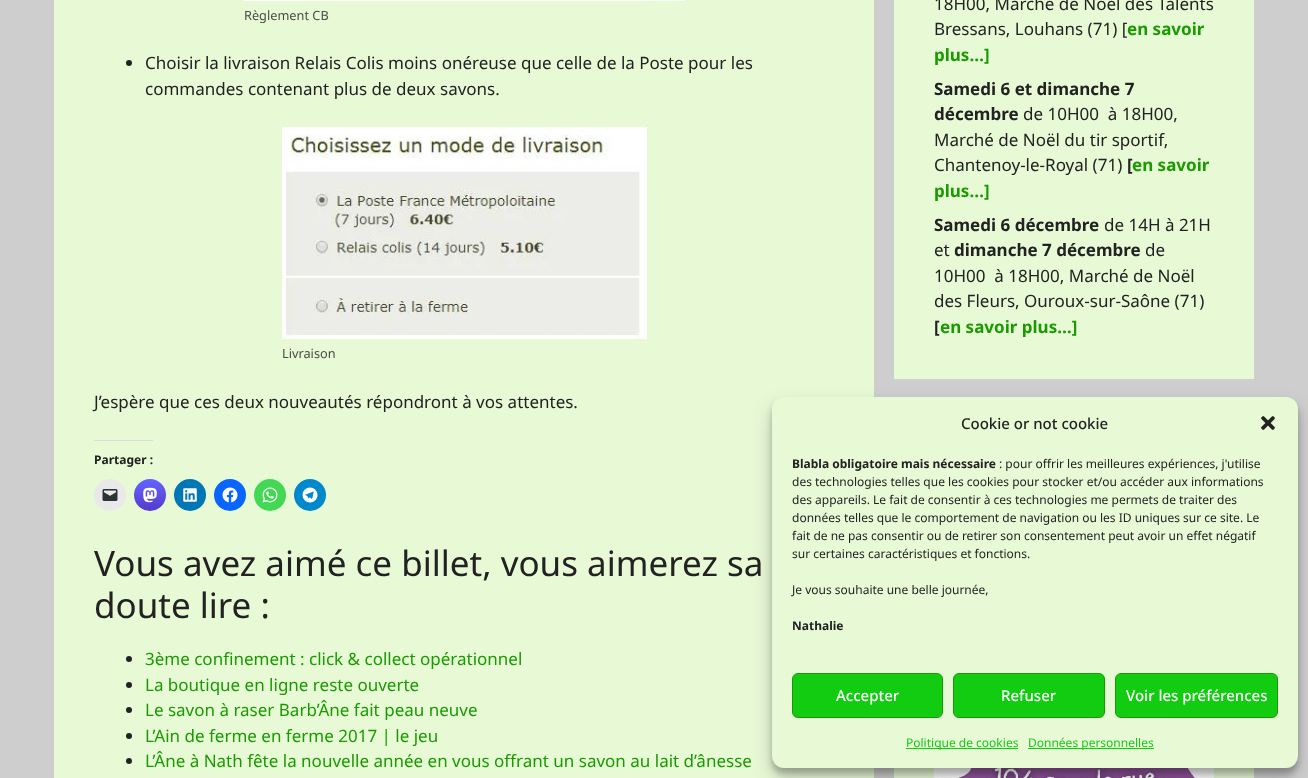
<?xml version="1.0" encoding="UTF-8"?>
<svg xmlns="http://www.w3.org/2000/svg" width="1308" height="778">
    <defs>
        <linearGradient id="g1" gradientUnits="userSpaceOnUse" x1="150" y1="511" x2="150" y2="479"><stop offset="0" stop-color="#563ACC"/><stop offset="1" stop-color="#6364FF"/></linearGradient>
        <filter id="blur1" x="-50%" y="-200%" width="200%" height="500%"><feGaussianBlur stdDeviation="3"/></filter>
        <filter id="blur2" x="-50%" y="-200%" width="200%" height="500%"><feGaussianBlur stdDeviation="10"/></filter>
    </defs>
    <rect width="100%" height="100%" fill="#CECECE"/>
    <rect x="54" y="0" width="820" height="778" fill="#E8F9D6"/>
    <image x="244" y="0" width="440" height="1" href="img_01.png"/>
    <text x="244" y="20" font-family="Noto Sans" font-size="12.75" fill="#4A4D46">Règlement CB</text>
    <circle cx="129" cy="63" r="3" fill="#222222"/>
    <text font-family="Noto Sans" font-size="17" fill="#222222">
        <tspan x="145" y="69">Choisir la livraison Relais Colis moins onéreuse que celle de la Poste pour les</tspan>
        <tspan x="145" y="95">commandes contenant plus de deux savons.</tspan>
    </text>
    <image x="282" y="127" width="365" height="212" href="img_02.png"/>
    <text x="282" y="358" font-family="Noto Sans" font-size="12.75" fill="#4A4D46">Livraison</text>
    <text x="94" y="408" font-family="Noto Sans" font-size="17" fill="#222222">J’espère que ces deux nouveautés répondront à vos attentes.</text>
    <rect x="94" y="440" width="59" height="1" fill="#DCDCDE"/>
    <text x="94" y="464" font-family="Noto Sans" font-size="12" font-weight="700" fill="#222222">Partager :</text>
    <circle cx="110" cy="495" r="16" fill="#E9E9E9"/>
    <image x="102" y="489" width="16" height="12" href="img_03.png"/>
    <circle cx="150" cy="495" r="16" fill="url(#g1)"/>
    <image x="143" y="487" width="14" height="16" href="img_04.png"/>
    <circle cx="190" cy="495" r="16" fill="#0077B5"/>
    <image x="183" y="488" width="14" height="14" href="img_05.png"/>
    <circle cx="230" cy="495" r="16" fill="#0866FF"/>
    <image x="222" y="487" width="16" height="16" href="img_06.png"/>
    <circle cx="270" cy="495" r="16" fill="#43D854"/>
    <image x="262" y="487" width="16" height="16" href="img_07.png"/>
    <circle cx="310" cy="495" r="16" fill="#0088CC"/>
    <image x="302" y="487" width="16" height="16" href="img_08.png"/>
    <text font-family="Noto Sans" font-size="35" fill="#222222">
        <tspan x="94" y="576">Vous avez aimé ce billet, vous aimerez sa</tspan>
        <tspan x="94" y="618">doute lire :</tspan>
    </text>
    <circle cx="129" cy="659" r="3" fill="#222222"/>
    <text x="145" y="665" font-family="Noto Sans" font-size="17" fill="#199B00">3ème confinement : click &amp; collect opérationnel</text>
    <circle cx="129" cy="685" r="3" fill="#222222"/>
    <text x="145" y="691" font-family="Noto Sans" font-size="17" fill="#199B00">La boutique en ligne reste ouverte</text>
    <circle cx="129" cy="710" r="3" fill="#222222"/>
    <text x="145" y="716" font-family="Noto Sans" font-size="17" fill="#199B00">Le savon à raser Barb’Âne fait peau neuve</text>
    <circle cx="129" cy="736" r="3" fill="#222222"/>
    <text x="145" y="742" font-family="Noto Sans" font-size="17" fill="#199B00">L’Ain de ferme en ferme 2017 | le jeu</text>
    <circle cx="129" cy="761" r="3" fill="#222222"/>
    <text x="145" y="767" font-family="Noto Sans" font-size="17" fill="#199B00">L’Âne à Nath fête la nouvelle année en vous offrant un savon au lait d’ânesse</text>
    <rect x="894" y="0" width="360" height="379" fill="#E8F9D6"/>
    <text font-family="Noto Sans" font-size="17" fill="#222222">
        <tspan x="934" y="10">18H00, Marché de Noël des Talents</tspan>
        <tspan x="934" y="35">Bressans, Louhans (71) [</tspan>
    </text>
    <text x="1127" y="35" font-family="Noto Sans" font-size="17" font-weight="700" fill="#199B00">en savoir</text>
    <text x="934" y="61" font-family="Noto Sans" font-size="17" font-weight="700" fill="#199B00">plus…]</text>
    <text font-family="Noto Sans" font-size="17" font-weight="700" fill="#222222">
        <tspan x="934" y="95">Samedi 6 et dimanche 7</tspan>
        <tspan x="934" y="120">décembre</tspan>
    </text>
    <text x="1023" y="120" font-family="Noto Sans" font-size="17" fill="#222222" xml:space="preserve">de 10H00  à 18H00,</text>
    <text font-family="Noto Sans" font-size="17" fill="#222222">
        <tspan x="934" y="146">Marché de Noël du tir sportif,</tspan>
        <tspan x="934" y="171">Chantenoy-le-Royal (71)</tspan>
    </text>
    <text x="1127" y="171" font-family="Noto Sans" font-size="17" font-weight="700" fill="#222222">[</text>
    <text x="1132" y="171" font-family="Noto Sans" font-size="17" font-weight="700" fill="#199B00">en savoir</text>
    <text x="934" y="197" font-family="Noto Sans" font-size="17" font-weight="700" fill="#199B00">plus…]</text>
    <text x="934" y="231" font-family="Noto Sans" font-size="17" font-weight="700" fill="#222222">Samedi 6 décembre</text>
    <text x="1104" y="231" font-family="Noto Sans" font-size="17" fill="#222222">de 14H à 21H</text>
    <text x="934" y="256" font-family="Noto Sans" font-size="17" fill="#222222">et</text>
    <text x="954" y="256" font-family="Noto Sans" font-size="17" font-weight="700" fill="#222222">dimanche 7 décembre</text>
    <text x="1145" y="256" font-family="Noto Sans" font-size="17" fill="#222222">de</text>
    <text font-family="Noto Sans" font-size="17" fill="#222222" xml:space="preserve"><tspan x="934" y="282">10H00  à 18H00, Marché de Noël</tspan><tspan x="934" y="307">des Fleurs, Ouroux-sur-Saône (71)</tspan></text>
    <text x="934" y="333" font-family="Noto Sans" font-size="17" font-weight="700" fill="#222222">[</text>
    <text x="940" y="333" font-family="Noto Sans" font-size="17" font-weight="700" fill="#199B00">en savoir plus…]</text>
    <rect x="894" y="768" width="360" height="10" fill="#E8F9D6"/>
    <image x="934" y="768" width="280" height="10" href="img_09.png"/>
    <rect x="772" y="403" width="526" height="371" rx="12" fill="#000000" fill-opacity="0.23" filter="url(#blur1)"/>
    <rect x="772" y="407" width="526" height="371" rx="12" fill="#000000" fill-opacity="0.19" filter="url(#blur2)"/>
    <rect x="772" y="397" width="526" height="371" rx="12" fill="#E8F9D6"/>
    <text x="961" y="429" font-family="Noto Sans" font-size="15" font-weight="500" fill="#222222">Cookie or not cookie</text>
    <image x="1261" y="416" width="14" height="14" href="img_10.png"/>
    <text x="792" y="468" font-family="Noto Sans" font-size="12" font-weight="700" fill="#222222">Blabla obligatoire mais nécessaire</text>
    <text x="999" y="468" font-family="Noto Sans" font-size="12" fill="#222222">: pour offrir les meilleures expériences, j'utilise</text>
    <text font-family="Noto Sans" font-size="12" fill="#222222">
        <tspan x="792" y="486">des technologies telles que les cookies pour stocker et/ou accéder aux informations</tspan>
        <tspan x="792" y="504">des appareils. Le fait de consentir à ces technologies me permets de traiter des</tspan>
        <tspan x="792" y="522">données telles que le comportement de navigation ou les ID uniques sur ce site. Le</tspan>
        <tspan x="792" y="540">fait de ne pas consentir ou de retirer son consentement peut avoir un effet négatif</tspan>
        <tspan x="792" y="558">sur certaines caractéristiques et fonctions.</tspan>
    </text>
    <text x="792" y="594" font-family="Noto Sans" font-size="12" fill="#222222">Je vous souhaite une belle journée,</text>
    <text x="792" y="630" font-family="Noto Sans" font-size="12" font-weight="700" fill="#222222">Nathalie</text>
    <rect x="792.5" y="673.5" width="150" height="44" rx="5.5" fill="#11CC11" stroke="#199B00"/>
    <text x="836" y="701" font-family="Noto Sans" font-size="15" font-weight="500" fill="#FFFFFF">Accepter</text>
    <rect x="953.5" y="673.5" width="151" height="44" rx="5.5" fill="#11CC11" stroke="#199B00"/>
    <text x="1001" y="701" font-family="Noto Sans" font-size="15" font-weight="500" fill="#FFFFFF">Refuser</text>
    <rect x="1115.5" y="673.5" width="162" height="44" rx="5.5" fill="#11CC11" stroke="#199B00"/>
    <text x="1126" y="701" font-family="Noto Sans" font-size="15" font-weight="500" fill="#FFFFFF">Voir les préférences</text>
    <rect x="906" y="748" width="112" height="1" fill="#11CC11"/>
    <text x="906" y="747" font-family="Noto Sans" font-size="12" fill="#11CC11">Politique de cookies</text>
    <rect x="1028" y="748" width="126" height="1" fill="#11CC11"/>
    <text x="1028" y="747" font-family="Noto Sans" font-size="12" fill="#11CC11">Données personnelles</text>
</svg>
